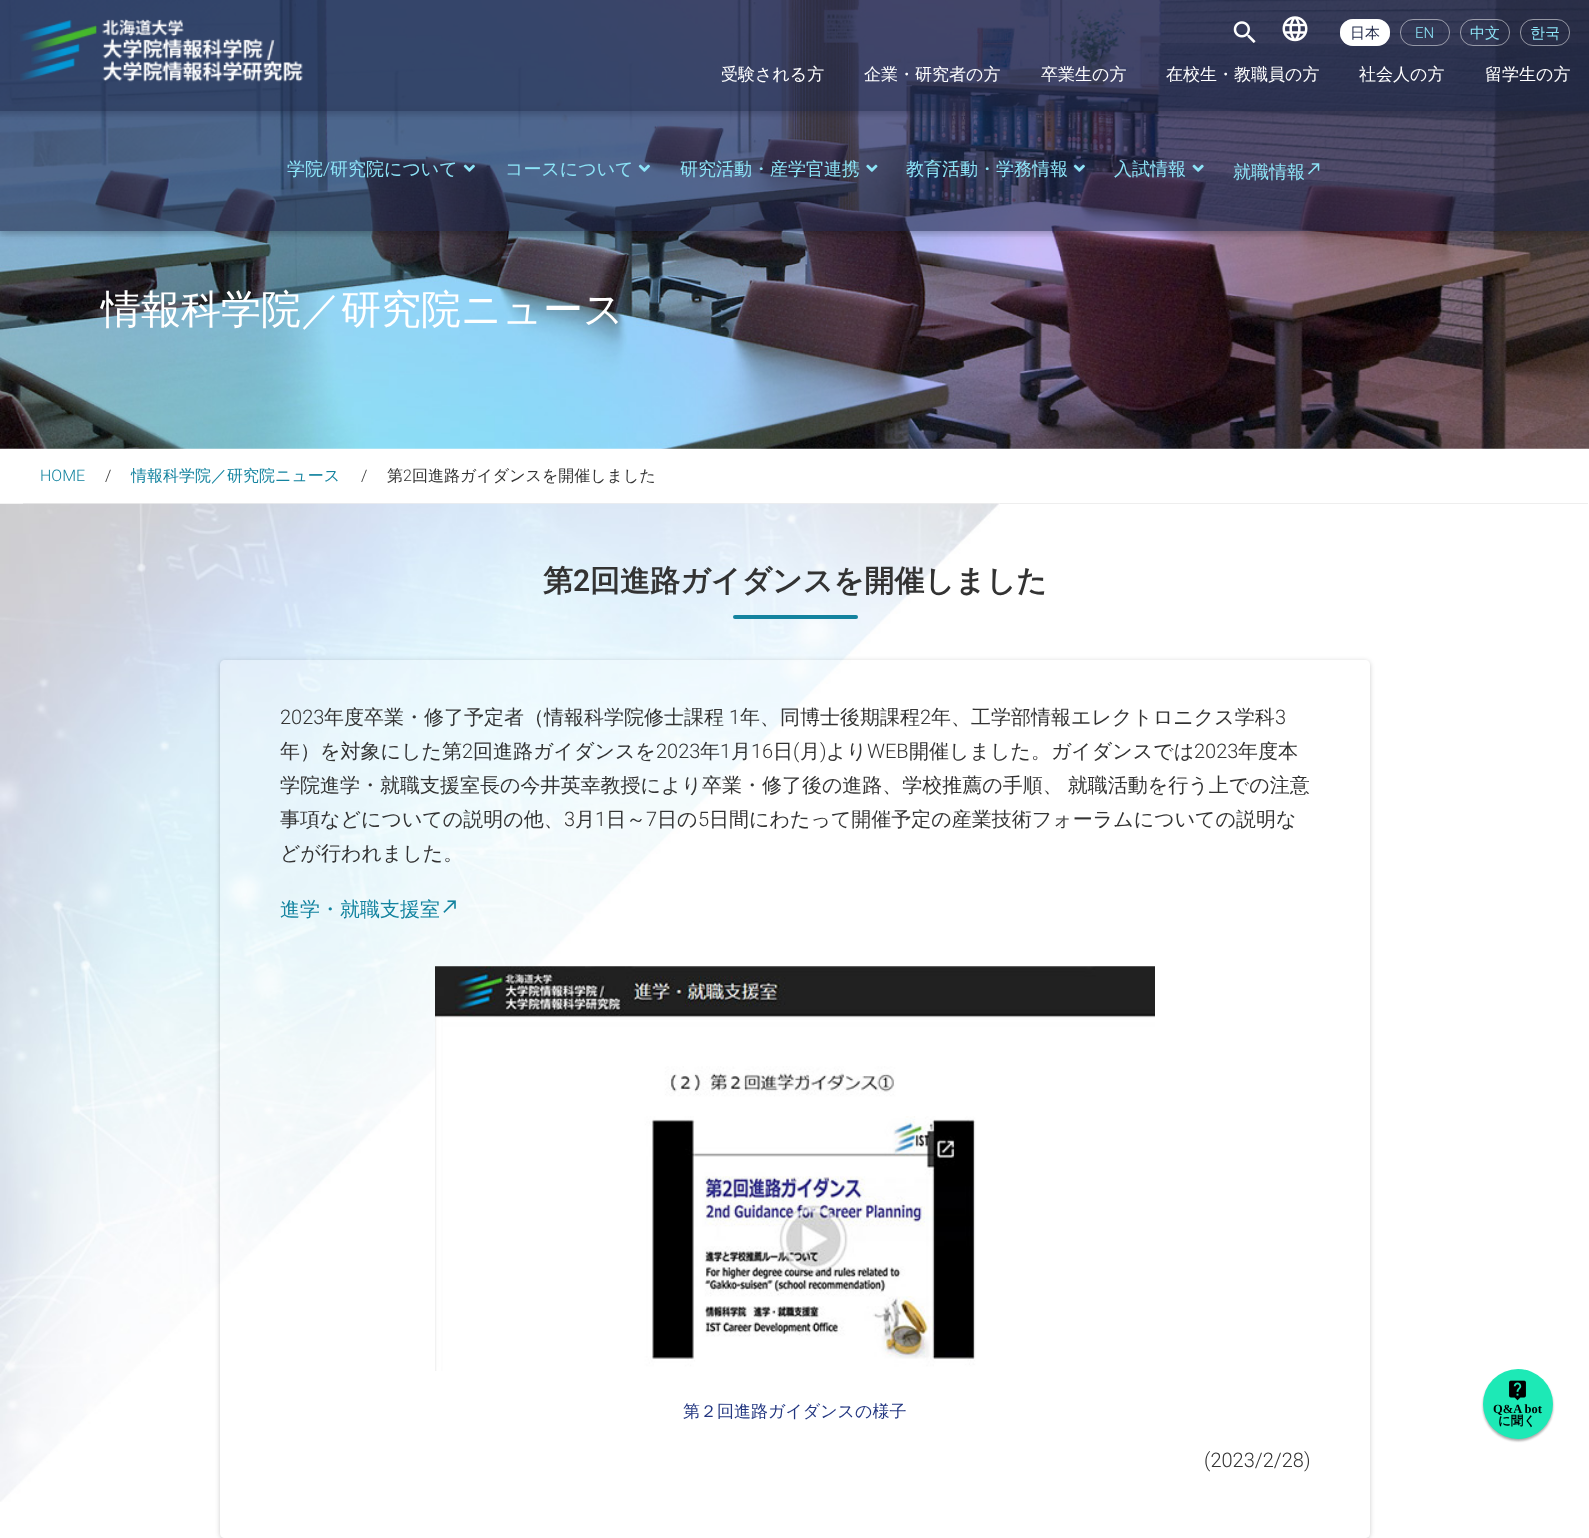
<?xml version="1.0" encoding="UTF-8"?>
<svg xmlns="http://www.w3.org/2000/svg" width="1589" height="1538">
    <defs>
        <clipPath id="clip1"><rect x="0" y="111" width="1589" height="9"/></clipPath>
        <filter id="blur1" x="-50%" y="-200%" width="200%" height="500%"><feGaussianBlur stdDeviation="6"/></filter>
        <clipPath id="clip2"><rect x="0" y="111" width="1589" height="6"/></clipPath>
        <filter id="blur2" x="-50%" y="-200%" width="200%" height="500%"><feGaussianBlur stdDeviation="3"/></filter>
        <clipPath id="clip3"><path d="M 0 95 H 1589 V 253 H 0 Z M 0 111 H 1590 V 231 H 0 Z" clip-rule="evenodd"/></clipPath>
        <clipPath id="clip4"><rect x="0" y="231" width="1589" height="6"/></clipPath>
        <clipPath id="clip5"><path d="M 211 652 H 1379 V 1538 H 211 Z M 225 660 H 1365 C 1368 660 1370 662 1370 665 V 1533 C 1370 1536 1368 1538 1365 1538 H 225 C 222 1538 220 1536 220 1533 V 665 C 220 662 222 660 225 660 Z" clip-rule="evenodd"/></clipPath>
        <filter id="blur3" x="-50%" y="-200%" width="200%" height="500%"><feGaussianBlur stdDeviation="2.5"/></filter>
        <filter id="blur4" x="-50%" y="-200%" width="200%" height="500%"><feGaussianBlur stdDeviation="1"/></filter>
    </defs>
    <rect width="100%" height="100%" fill="#FFFFFF"/>
    <image x="0" y="0" width="1589" height="449" href="img_10.png"/>
    <g clip-path="url(#clip1)">
        <rect x="-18" y="3" width="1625" height="111" fill="#000000" fill-opacity="0.12" filter="url(#blur1)"/>
    </g>
    <g clip-path="url(#clip2)">
        <rect x="-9" y="3" width="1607" height="111" fill="#000000" fill-opacity="0.16" filter="url(#blur2)"/>
    </g>
    <rect x="0" y="0" width="1589" height="111" fill="#1C2546" fill-opacity="0.8"/>
    <image x="20" y="18" width="283" height="64" href="img_01.png"/>
    <image x="1233" y="21" width="23" height="22" href="img_02.png"/>
    <image x="1282" y="16" width="26" height="26" href="img_03.png"/>
    <rect x="1340" y="19" width="50" height="27" rx="13" fill="#FFFFFF"/>
    <rect x="1340.5" y="19.5" width="49" height="26" rx="12.5" fill="none" stroke="#FFFFFF" stroke-opacity="0.5"/>
    <text x="1350" y="38" font-family="WenQuanYi Zen Hei" font-size="15" font-weight="500" fill="#1C2546">日本</text>
    <rect x="1400.5" y="19.5" width="49" height="26" rx="12.5" fill="none" stroke="#FFFFFF" stroke-opacity="0.5"/>
    <text x="1415" y="38" font-family="Roboto" font-size="15" font-weight="300" fill="#8DE5F8">EN</text>
    <rect x="1460.5" y="19.5" width="49" height="26" rx="12.5" fill="none" stroke="#FFFFFF" stroke-opacity="0.5"/>
    <text x="1470" y="38" font-family="WenQuanYi Zen Hei" font-size="15" font-weight="500" fill="#8DE5F8">中文</text>
    <rect x="1520.5" y="19.5" width="49" height="26" rx="12.5" fill="none" stroke="#FFFFFF" stroke-opacity="0.5"/>
    <text x="1530" y="38" font-family="WenQuanYi Zen Hei" font-size="15" font-weight="500" fill="#8DE5F8">한국</text>
    <text x="721" y="80" font-family="WenQuanYi Zen Hei" font-size="17" font-weight="500" fill="#FFFFFF">受験される方</text>
    <text x="864" y="80" font-family="WenQuanYi Zen Hei" font-size="17" font-weight="500" fill="#FFFFFF">企業・研究者の方</text>
    <text x="1041" y="80" font-family="WenQuanYi Zen Hei" font-size="17" font-weight="500" fill="#FFFFFF">卒業生の方</text>
    <text x="1166" y="80" font-family="WenQuanYi Zen Hei" font-size="17" font-weight="500" fill="#FFFFFF">在校生・教職員の方</text>
    <text x="1359" y="80" font-family="WenQuanYi Zen Hei" font-size="17" font-weight="500" fill="#FFFFFF">社会人の方</text>
    <text x="1485" y="80" font-family="WenQuanYi Zen Hei" font-size="17" font-weight="500" fill="#FFFFFF">留学生の方</text>
    <g clip-path="url(#clip3)">
        <rect x="0" y="114" width="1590" height="120" fill="#000000" fill-opacity="0.12" filter="url(#blur1)"/>
    </g>
    <g clip-path="url(#clip4)">
        <rect x="0" y="114" width="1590" height="120" fill="#000000" fill-opacity="0.16" filter="url(#blur2)"/>
    </g>
    <rect x="0" y="111" width="1589" height="120" fill="#1C2546" fill-opacity="0.6"/>
    <text x="287" y="175" font-family="WenQuanYi Zen Hei" font-size="18" font-weight="500" fill="#8DE5F8">学院</text>
    <text x="323" y="175" font-family="Roboto" font-size="18" font-weight="300" fill="#8DE5F8">/</text>
    <text x="330" y="175" font-family="WenQuanYi Zen Hei" font-size="18" font-weight="500" fill="#8DE5F8">研究院について</text>
    <image x="463" y="164" width="12" height="8" href="img_04.png"/>
    <text x="505" y="175" font-family="WenQuanYi Zen Hei" font-size="18" font-weight="500" fill="#8DE5F8">コースについて</text>
    <image x="638" y="164" width="12" height="8" href="img_05.png"/>
    <text x="680" y="175" font-family="WenQuanYi Zen Hei" font-size="18" font-weight="500" fill="#8DE5F8">研究活動・産学官連携</text>
    <image x="866" y="164" width="12" height="8" href="img_06.png"/>
    <text x="906" y="175" font-family="WenQuanYi Zen Hei" font-size="18" font-weight="500" fill="#8DE5F8">教育活動・学務情報</text>
    <image x="1073" y="164" width="12" height="8" href="img_07.png"/>
    <text x="1114" y="175" font-family="WenQuanYi Zen Hei" font-size="18" font-weight="500" fill="#8DE5F8">入試情報</text>
    <image x="1192" y="164" width="12" height="8" href="img_08.png"/>
    <text x="1233" y="178" font-family="WenQuanYi Zen Hei" font-size="18" font-weight="500" fill="#8DE5F8">就職情報</text>
    <image x="1308" y="163" width="12" height="12" href="img_09.png"/>
    <text x="101" y="323" font-family="WenQuanYi Zen Hei" font-size="40" font-weight="500" fill="#FFFFFF">情報科学院／研究院ニュース</text>
    <rect x="23" y="503" width="1565" height="1" fill="#EEEEEE"/>
    <text x="40" y="481" font-family="Roboto" font-size="16" font-weight="300" fill="#13839F">HOME</text>
    <text x="105" y="481" font-family="Roboto" font-size="16" font-weight="300" fill="#333333">/</text>
    <text x="131" y="481" font-family="WenQuanYi Zen Hei" font-size="16" font-weight="500" fill="#13839F">情報科学院／研究院ニュース</text>
    <text x="361" y="481" font-family="Roboto" font-size="16" font-weight="300" fill="#333333">/</text>
    <text x="387" y="481" font-family="WenQuanYi Zen Hei" font-size="16" font-weight="500" fill="#333333">第</text>
    <text x="403" y="481" font-family="Roboto" font-size="16" font-weight="300" fill="#333333">2</text>
    <text x="412" y="481" font-family="WenQuanYi Zen Hei" font-size="16" font-weight="500" fill="#333333">回進路ガイダンスを開催しました</text>
    <image x="0" y="503" width="1000" height="999" href="img_11.png"/>
    <text x="543" y="591" font-family="WenQuanYi Zen Hei" font-size="30" font-weight="700" fill="#333333">第</text>
    <text x="573" y="591" font-family="Roboto" font-size="30" font-weight="600" fill="#333333">2</text>
    <text x="590" y="591" font-family="WenQuanYi Zen Hei" font-size="30" font-weight="700" fill="#333333">回進路ガイダンスを開催しました</text>
    <rect x="733" y="615" width="125" height="4" rx="2" fill="#13839F"/>
    <g clip-path="url(#clip5)">
        <rect x="220" y="661" width="1150" height="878" rx="5" fill="#000000" fill-opacity="0.2" filter="url(#blur3)"/>
    </g>
    <rect x="220" y="660" width="1150" height="878" rx="5" fill="#FFFFFF" fill-opacity="0.3"/>
    <text x="280" y="724" font-family="Roboto" font-size="20" font-weight="300" fill="#333333">2023</text>
    <text x="324" y="724" font-family="WenQuanYi Zen Hei" font-size="20" font-weight="500" fill="#333333">年度卒業・修了予定者（情報科学院修⼠課程</text>
    <text x="729" y="724" font-family="Roboto" font-size="20" font-weight="300" fill="#333333">1</text>
    <text x="740" y="724" font-family="WenQuanYi Zen Hei" font-size="20" font-weight="500" fill="#333333">年、同博⼠後期課程</text>
    <text x="920" y="724" font-family="Roboto" font-size="20" font-weight="300" fill="#333333">2</text>
    <text x="931" y="724" font-family="WenQuanYi Zen Hei" font-size="20" font-weight="500" fill="#333333">年、⼯学部情報エレクトロニクス学科</text>
    <text x="1275" y="724" font-family="Roboto" font-size="20" font-weight="300" fill="#333333">3</text>
    <text x="280" y="758" font-family="WenQuanYi Zen Hei" font-size="20" font-weight="500" fill="#333333">年）を対象にした第</text>
    <text x="462" y="758" font-family="Roboto" font-size="20" font-weight="300" fill="#333333">2</text>
    <text x="473" y="758" font-family="WenQuanYi Zen Hei" font-size="20" font-weight="500" fill="#333333">回進路ガイダンスを</text>
    <text x="656" y="758" font-family="Roboto" font-size="20" font-weight="300" fill="#333333">2023</text>
    <text x="700" y="758" font-family="WenQuanYi Zen Hei" font-size="20" font-weight="500" fill="#333333">年</text>
    <text x="720" y="758" font-family="Roboto" font-size="20" font-weight="300" fill="#333333">1</text>
    <text x="731" y="758" font-family="WenQuanYi Zen Hei" font-size="20" font-weight="500" fill="#333333">月</text>
    <text x="751" y="758" font-family="Roboto" font-size="20" font-weight="300" fill="#333333">16</text>
    <text x="773" y="758" font-family="WenQuanYi Zen Hei" font-size="20" font-weight="500" fill="#333333">日</text>
    <text x="793" y="758" font-family="Roboto" font-size="20" font-weight="300" fill="#333333">(</text>
    <text x="800" y="758" font-family="WenQuanYi Zen Hei" font-size="20" font-weight="500" fill="#333333">月</text>
    <text x="820" y="758" font-family="Roboto" font-size="20" font-weight="300" fill="#333333">)</text>
    <text x="826" y="758" font-family="WenQuanYi Zen Hei" font-size="20" font-weight="500" fill="#333333">より</text>
    <text x="867" y="758" font-family="Roboto" font-size="20" font-weight="300" fill="#333333">WEB</text>
    <text x="909" y="758" font-family="WenQuanYi Zen Hei" font-size="20" font-weight="500" fill="#333333">開催しました。ガイダンスでは</text>
    <text x="1194" y="758" font-family="Roboto" font-size="20" font-weight="300" fill="#333333">2023</text>
    <text x="1238" y="758" font-family="WenQuanYi Zen Hei" font-size="20" font-weight="500" fill="#333333">年度本</text>
    <text font-family="WenQuanYi Zen Hei" font-size="20" font-weight="500" fill="#333333">
        <tspan x="280" y="792" word-spacing="-1">学院進学・就職⽀援室⻑の今井英幸教授により卒業・修了後の進路、学校推薦の手順、 就職活動を行う上での注意</tspan>
        <tspan x="280" y="826">事項などについての説明の他、</tspan>
    </text>
    <text x="564" y="826" font-family="Roboto" font-size="20" font-weight="300" fill="#333333">3</text>
    <text x="575" y="826" font-family="WenQuanYi Zen Hei" font-size="20" font-weight="500" fill="#333333">月</text>
    <text x="595" y="826" font-family="Roboto" font-size="20" font-weight="300" fill="#333333">1</text>
    <text x="606" y="826" font-family="WenQuanYi Zen Hei" font-size="20" font-weight="500" fill="#333333">日～</text>
    <text x="646" y="826" font-family="Roboto" font-size="20" font-weight="300" fill="#333333">7</text>
    <text x="657" y="826" font-family="WenQuanYi Zen Hei" font-size="20" font-weight="500" fill="#333333">日の</text>
    <text x="698" y="826" font-family="Roboto" font-size="20" font-weight="300" fill="#333333">5</text>
    <text x="709" y="826" font-family="WenQuanYi Zen Hei" font-size="20" font-weight="500" fill="#333333">日間にわたって開催予定の産業技術フォーラムについての説明な</text>
    <text x="280" y="860" font-family="WenQuanYi Zen Hei" font-size="20" font-weight="500" fill="#333333">どが行われました。</text>
    <text x="280" y="916" font-family="WenQuanYi Zen Hei" font-size="20" font-weight="500" fill="#13839F">進学・就職支援室</text>
    <image x="443" y="900" width="13" height="13" href="img_12.png"/>
    <image x="435" y="966" width="720" height="405" href="img_13.png"/>
    <text x="683" y="1417" font-family="WenQuanYi Zen Hei" font-size="17" font-weight="500" fill="#223680">第２回進路ガイダンスの様子</text>
    <text x="1204" y="1467" font-family="Roboto" font-size="20" font-weight="300" fill="#333333">(2023/2/28)</text>
    <rect x="1483" y="1371" width="70" height="70" rx="35" fill="#000000" fill-opacity="0.24" filter="url(#blur4)"/>
    <rect x="1483" y="1371" width="70" height="70" rx="35" fill="#000000" fill-opacity="0.12" filter="url(#blur4)"/>
    <circle cx="1518" cy="1404" r="35" fill="#1DE9B6"/>
    <image x="1509" y="1380" width="17" height="21" href="img_14.png"/>
    <text x="1493" y="1413" font-family="Liberation Serif" font-size="12.5" font-weight="700" fill="#000000">Q&amp;A bot</text>
    <text x="1498" y="1425" font-family="WenQuanYi Zen Hei" font-size="12.5" font-weight="700" fill="#000000">に聞く</text>
</svg>
